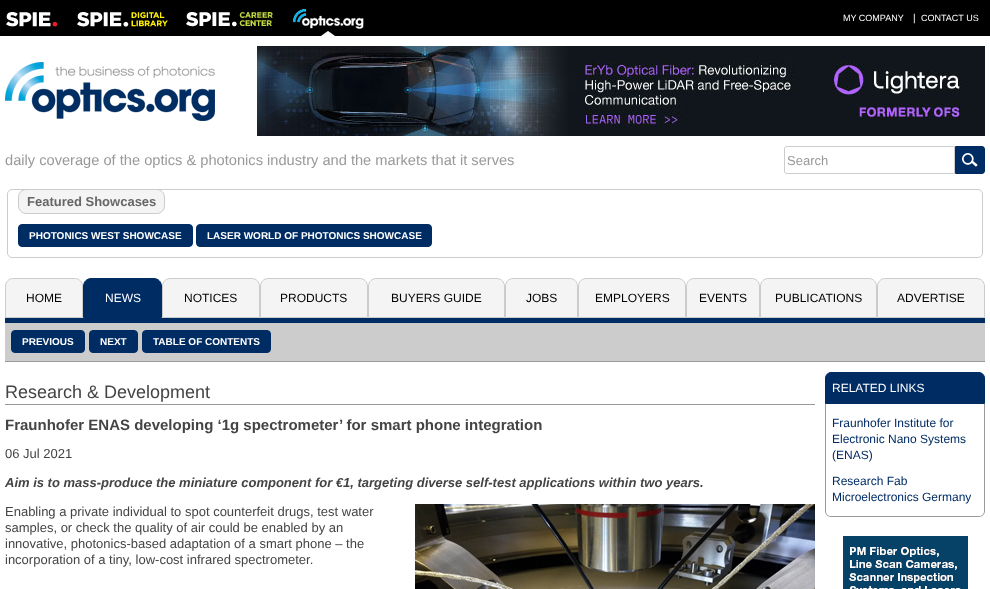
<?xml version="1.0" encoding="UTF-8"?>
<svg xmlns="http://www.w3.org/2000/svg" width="990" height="589">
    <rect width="100%" height="100%" fill="#FFFFFF"/>
    <rect x="0" y="0" width="990" height="36" fill="#000000"/>
    <image x="6" y="12" width="52" height="15" href="img_01.png"/>
    <image x="77" y="12" width="91" height="15" href="img_02.png"/>
    <image x="186" y="12" width="87" height="15" href="img_03.png"/>
    <image x="293" y="9" width="71" height="27" href="img_04.png"/>
    <text x="843" y="21" font-family="Liberation Sans" font-size="9" fill="#FFFFFF">MY COMPANY</text>
    <text x="913" y="21" font-family="Liberation Sans" font-size="10" fill="#FFFFFF">|</text>
    <text x="921" y="21" font-family="Liberation Sans" font-size="9" fill="#FFFFFF">CONTACT US</text>
    <image x="5" y="62" width="210" height="59" href="img_05.png"/>
    <image x="257" y="46" width="728" height="90" href="img_06.png"/>
    <text x="5" y="165" font-family="Liberation Sans" font-size="14.65" fill="#999999">daily coverage of the optics &amp; photonics industry and the markets that it serves</text>
    <path d="M 787 146.5 H 954.5 V 173.5 H 787 C 785.5 173.5 784.5 172.5 784.5 171 V 149 C 784.5 147.5 785.5 146.5 787 146.5 Z" fill="none" stroke="#CCCCCC"/>
    <text x="787" y="165" font-family="Liberation Sans" font-size="13" fill="#999999">Search</text>
    <path d="M 955.5 146.5 H 982 C 983.5 146.5 984.5 147.5 984.5 149 V 171 C 984.5 172.5 983.5 173.5 982 173.5 H 955.5 Z" fill="none" stroke="#002C64"/>
    <rect x="956" y="147" width="28" height="26" fill="#002C64"/>
    <image x="962" y="153" width="16" height="14" href="img_07.png"/>
    <rect x="7.5" y="189.5" width="975" height="68" rx="4.5" fill="none" stroke="#CCCCCC"/>
    <rect x="18.5" y="189.5" width="146" height="24" rx="7.5" fill="#F4F4F4" stroke="#CCCCCC"/>
    <text x="27" y="206" font-family="Liberation Sans" font-size="13" font-weight="700" fill="#666666">Featured Showcases</text>
    <rect x="18.5" y="224.5" width="174" height="22" rx="3.5" fill="#002C64" stroke="#002C64"/>
    <text x="29" y="239" font-family="Liberation Sans" font-size="10" font-weight="700" fill="#FFFFFF">PHOTONICS WEST SHOWCASE</text>
    <rect x="196.5" y="224.5" width="235" height="22" rx="3.5" fill="#002C64" stroke="#002C64"/>
    <text x="207" y="239" font-family="Liberation Sans" font-size="10" font-weight="700" fill="#FFFFFF">LASER WORLD OF PHOTONICS SHOWCASE</text>
    <rect x="5" y="318" width="980" height="5" fill="#002C64"/>
    <path d="M 13 278.5 H 75 C 79 278.5 82.5 282 82.5 286 V 317.5 H 5.5 V 286 C 5.5 282 9 278.5 13 278.5 Z" fill="#F4F4F4" stroke="#CCCCCC"/>
    <text x="26" y="302" font-family="Liberation Sans" font-size="12" fill="#000000">HOME</text>
    <path d="M 91 278.5 H 154 C 158 278.5 161.5 282 161.5 286 V 317.5 H 83.5 V 286 C 83.5 282 87 278.5 91 278.5 Z" fill="#002C64" stroke="#002C64"/>
    <text x="105" y="302" font-family="Liberation Sans" font-size="12" fill="#FFFFFF">NEWS</text>
    <path d="M 170 278.5 H 252 C 256 278.5 259.5 282 259.5 286 V 317.5 H 162.5 V 286 C 162.5 282 166 278.5 170 278.5 Z" fill="#F4F4F4" stroke="#CCCCCC"/>
    <text x="184" y="302" font-family="Liberation Sans" font-size="12" fill="#000000">NOTICES</text>
    <path d="M 268 278.5 H 360 C 364 278.5 367.5 282 367.5 286 V 317.5 H 260.5 V 286 C 260.5 282 264 278.5 268 278.5 Z" fill="#F4F4F4" stroke="#CCCCCC"/>
    <text x="280" y="302" font-family="Liberation Sans" font-size="12" fill="#000000">PRODUCTS</text>
    <path d="M 376 278.5 H 497 C 501 278.5 504.5 282 504.5 286 V 317.5 H 368.5 V 286 C 368.5 282 372 278.5 376 278.5 Z" fill="#F4F4F4" stroke="#CCCCCC"/>
    <text x="391" y="302" font-family="Liberation Sans" font-size="12" fill="#000000">BUYERS GUIDE</text>
    <path d="M 513 278.5 H 570 C 574 278.5 577.5 282 577.5 286 V 317.5 H 505.5 V 286 C 505.5 282 509 278.5 513 278.5 Z" fill="#F4F4F4" stroke="#CCCCCC"/>
    <text x="526" y="302" font-family="Liberation Sans" font-size="12" fill="#000000">JOBS</text>
    <path d="M 586 278.5 H 678 C 682 278.5 685.5 282 685.5 286 V 317.5 H 578.5 V 286 C 578.5 282 582 278.5 586 278.5 Z" fill="#F4F4F4" stroke="#CCCCCC"/>
    <text x="595" y="302" font-family="Liberation Sans" font-size="12" fill="#000000">EMPLOYERS</text>
    <path d="M 694 278.5 H 752 C 756 278.5 759.5 282 759.5 286 V 317.5 H 686.5 V 286 C 686.5 282 690 278.5 694 278.5 Z" fill="#F4F4F4" stroke="#CCCCCC"/>
    <text x="699" y="302" font-family="Liberation Sans" font-size="12" fill="#000000">EVENTS</text>
    <path d="M 768 278.5 H 869 C 873 278.5 876.5 282 876.5 286 V 317.5 H 760.5 V 286 C 760.5 282 764 278.5 768 278.5 Z" fill="#F4F4F4" stroke="#CCCCCC"/>
    <text x="775" y="302" font-family="Liberation Sans" font-size="12" fill="#000000">PUBLICATIONS</text>
    <path d="M 885 278.5 H 977 C 981 278.5 984.5 282 984.5 286 V 317.5 H 877.5 V 286 C 877.5 282 881 278.5 885 278.5 Z" fill="#F4F4F4" stroke="#CCCCCC"/>
    <text x="897" y="302" font-family="Liberation Sans" font-size="12" fill="#000000">ADVERTISE</text>
    <rect x="5" y="323" width="980" height="38" fill="#CCCCCC"/>
    <rect x="5" y="361" width="980" height="1" fill="#999999"/>
    <rect x="11.5" y="330.5" width="73" height="22" rx="3.5" fill="#002C64" stroke="#002C64"/>
    <text x="22" y="345" font-family="Liberation Sans" font-size="10" font-weight="700" fill="#FFFFFF">PREVIOUS</text>
    <rect x="89.5" y="330.5" width="48" height="22" rx="3.5" fill="#002C64" stroke="#002C64"/>
    <text x="100" y="345" font-family="Liberation Sans" font-size="10" font-weight="700" fill="#FFFFFF">NEXT</text>
    <rect x="142.5" y="330.5" width="128" height="22" rx="3.5" fill="#002C64" stroke="#002C64"/>
    <text x="153" y="345" font-family="Liberation Sans" font-size="10" font-weight="700" fill="#FFFFFF">TABLE OF CONTENTS</text>
    <rect x="5" y="404" width="810" height="1" fill="#999999"/>
    <text x="5" y="398" font-family="Liberation Sans" font-size="18" fill="#444444">Research &amp; Development</text>
    <text x="5" y="430" font-family="Liberation Sans" font-size="15" font-weight="700" fill="#444444">Fraunhofer ENAS developing ‘1g spectrometer’ for smart phone integration</text>
    <text x="5" y="458" font-family="Liberation Sans" font-size="13" fill="#444444">06 Jul 2021</text>
    <text x="5" y="487" font-family="Liberation Sans" font-size="13" font-weight="700" font-style="italic" fill="#444444">Aim is to mass-produce the miniature component for €1, targeting diverse self-test applications within two years.</text>
    <text x="5" y="516" font-family="Liberation Sans" font-size="13" fill="#444444">Enabling a private individual to spot counterfeit drugs, test water</text>
    <image x="415" y="504" width="400" height="85" href="img_08.png"/>
    <text font-family="Liberation Sans" font-size="13" fill="#444444">
        <tspan x="5" y="532">samples, or check the quality of air could be enabled by an</tspan>
        <tspan x="5" y="548">innovative, photonics-based adaptation of a smart phone – the</tspan>
        <tspan x="5" y="564">incorporation of a tiny, low-cost infrared spectrometer.</tspan>
    </text>
    <path d="M 831 372.5 H 979 C 982 372.5 984.5 375 984.5 378 V 403.5 H 825.5 V 378 C 825.5 375 828 372.5 831 372.5 Z" fill="#002C64" stroke="#002C64"/>
    <text x="832" y="392" font-family="Liberation Sans" font-size="12" fill="#FFFFFF">RELATED LINKS</text>
    <path d="M 825 404 H 985 V 511 C 985 514 982 517 979 517 H 831 C 828 517 825 514 825 511 Z M 826 404 H 984 V 511 C 984 514 982 516 979 516 H 831 C 828 516 826 514 826 511 Z" fill="#999999" fill-rule="evenodd"/>
    <text font-family="Liberation Sans" font-size="12" fill="#002C64">
        <tspan x="832" y="427">Fraunhofer Institute for</tspan>
        <tspan x="832" y="443">Electronic Nano Systems</tspan>
        <tspan x="832" y="459">(ENAS)</tspan>
    </text>
    <text font-family="Liberation Sans" font-size="12" fill="#002C64">
        <tspan x="832" y="485">Research Fab</tspan>
        <tspan x="832" y="501">Microelectronics Germany</tspan>
    </text>
    <image x="843" y="536" width="125" height="53" href="img_09.png"/>
</svg>
